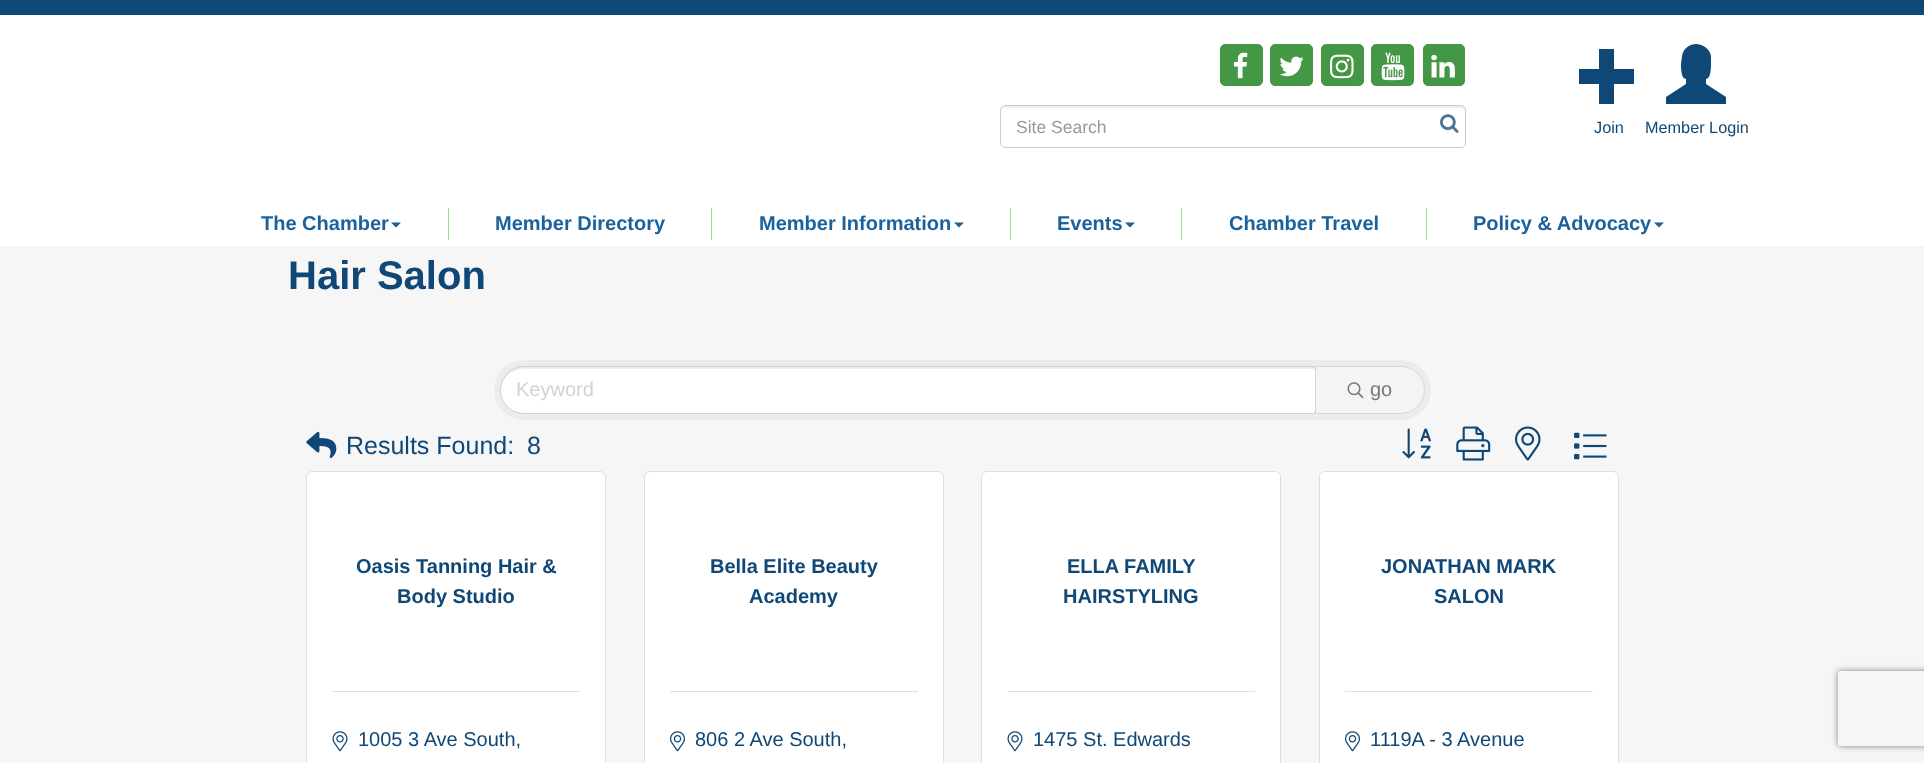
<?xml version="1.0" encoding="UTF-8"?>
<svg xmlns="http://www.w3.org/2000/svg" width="1924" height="763">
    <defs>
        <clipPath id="clip1"><path d="M 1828 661 H 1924 V 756 H 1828 Z M 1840.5 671 H 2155.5 C 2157 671 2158 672 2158 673.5 V 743.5 C 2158 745 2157 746 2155.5 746 H 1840.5 C 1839 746 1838 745 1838 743.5 V 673.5 C 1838 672 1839 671 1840.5 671 Z" clip-rule="evenodd"/></clipPath>
        <filter id="blur1" x="-50%" y="-200%" width="200%" height="500%"><feGaussianBlur stdDeviation="3"/></filter>
    </defs>
    <rect width="100%" height="100%" fill="#F6F6F6"/>
    <rect x="0" y="15" width="1924" height="231" fill="#FFFFFF"/>
    <rect x="0" y="0" width="1924" height="15" fill="#0F4776"/>
    <rect x="1220.5" y="44.5" width="42" height="41" rx="4.5" fill="#449745" stroke="#449745"/>
    <image x="1233" y="52" width="15" height="27" href="img_01.png"/>
    <rect x="1270.5" y="44.5" width="42" height="41" rx="4.5" fill="#449745" stroke="#449745"/>
    <image x="1279" y="56" width="25" height="21" href="img_02.png"/>
    <rect x="1321.5" y="44.5" width="42" height="41" rx="4.5" fill="#449745" stroke="#449745"/>
    <image x="1330" y="54" width="24" height="25" href="img_03.png"/>
    <rect x="1371.5" y="44.5" width="42" height="41" rx="4.5" fill="#449745" stroke="#449745"/>
    <image x="1381" y="52" width="24" height="29" href="img_04.png"/>
    <rect x="1423.5" y="44.5" width="41" height="41" rx="4.5" fill="#449745" stroke="#449745"/>
    <image x="1431" y="55" width="24" height="23" href="img_05.png"/>
    <path d="M 1005 108 H 1461 C 1463 108 1465 109 1465 111 C 1465 108 1464 106 1461 106 H 1005 L 1003 107 L 1002 108 L 1001 111 C 1001 109 1003 108 1005 108 Z" fill="#ECECEC"/>
    <rect x="1000.5" y="105.5" width="465" height="42" rx="4.5" fill="none" stroke="#CCCCCC"/>
    <text x="1016" y="133" font-family="Liberation Sans" font-size="17.5" fill="#999999">Site Search</text>
    <image x="1440" y="114" width="19" height="19" href="img_06.png"/>
    <path d="M 1579 84 V 69 H 1599 V 49 H 1614 V 69 H 1634 V 84 H 1614 V 104 H 1599 V 84 Z" fill="#0F4776"/>
    <text x="1594" y="133" font-family="Liberation Sans" font-size="16.25" fill="#0F4776">Join</text>
    <path d="M 1666 104 V 97 L 1686 84 V 79 C 1681 79 1681 67 1681 64 L 1682 56 C 1683 49 1689 44 1696 44 C 1703 44 1710 49 1711 56 V 64 C 1711 67 1711 79 1706 79 V 84 L 1726 97 V 104 Z" fill="#0F4776"/>
    <text x="1645" y="133" font-family="Liberation Sans" font-size="16.25" fill="#0F4776">Member Login</text>
    <text x="261" y="230" font-family="Liberation Sans" font-size="20" font-weight="700" fill="#1B619C">The Chamber</text>
    <path d="M 391 222.5 H 401 L 396 227.5 Z" fill="#1B619C"/>
    <rect x="448" y="208" width="1" height="32" fill="#8BE48C"/>
    <text x="495" y="230" font-family="Liberation Sans" font-size="20" font-weight="700" fill="#1B619C">Member Directory</text>
    <rect x="711" y="208" width="1" height="32" fill="#8BE48C"/>
    <text x="759" y="230" font-family="Liberation Sans" font-size="20" font-weight="700" fill="#1B619C">Member Information</text>
    <path d="M 954 222.5 H 964 L 959 227.5 Z" fill="#1B619C"/>
    <rect x="1010" y="208" width="1" height="32" fill="#8BE48C"/>
    <text x="1057" y="230" font-family="Liberation Sans" font-size="20" font-weight="700" fill="#1B619C">Events</text>
    <path d="M 1125 222.5 H 1135 L 1130 227.5 Z" fill="#1B619C"/>
    <rect x="1181" y="208" width="1" height="32" fill="#8BE48C"/>
    <text x="1229" y="230" font-family="Liberation Sans" font-size="20" font-weight="700" fill="#1B619C">Chamber Travel</text>
    <rect x="1426" y="208" width="1" height="32" fill="#8BE48C"/>
    <text x="1473" y="230" font-family="Liberation Sans" font-size="20" font-weight="700" fill="#1B619C">Policy &amp; Advocacy</text>
    <path d="M 1654 222.5 H 1664 L 1659 227.5 Z" fill="#1B619C"/>
    <text x="288" y="289" font-family="Liberation Sans" font-size="40" font-weight="700" fill="#0F4776">Hair Salon</text>
    <rect x="494" y="360" width="937" height="60" rx="30" fill="#ECECEC"/>
    <path d="M 523.5 368 H 1312.5 C 1314 368 1315 369 1315 370.5 V 410.5 C 1315 412 1314 413 1312.5 413 H 523.5 C 511 413 501 403 501 390.5 C 501 378 511 368 523.5 368 Z" fill="#FFFFFF"/>
    <path d="M 524 369 H 1312 C 1314 369 1315 370 1315 371 V 370 C 1314 369 1313 368 1312 368 H 524 C 511 368 501 378 501 391 C 501 379 511 369 524 369 Z" fill="#000000" fill-opacity="0.07"/>
    <path d="M 524 366.5 H 1312 C 1314 366.5 1315.5 368 1315.5 370 V 410 C 1315.5 412 1314 413.5 1312 413.5 H 524 C 511 413.5 500.5 403 500.5 390 C 500.5 377 511 366.5 524 366.5 Z" fill="none" stroke="#000000" stroke-opacity="0.12"/>
    <text x="516" y="396" font-family="Liberation Sans" font-size="20" fill="#D2D2D2">Keyword</text>
    <path d="M 1315 366 H 1401 C 1414.5 366 1425 376.5 1425 390 C 1425 403.5 1414.5 414 1401 414 H 1315 Z" fill="#F4F4F4"/>
    <path d="M 1315.5 366.5 H 1401 C 1414 366.5 1424.5 377 1424.5 390 C 1424.5 403 1414 413.5 1401 413.5 H 1315.5 Z" fill="none" stroke="#000000" stroke-opacity="0.12"/>
    <image x="1347" y="382" width="17" height="17" href="img_07.png"/>
    <text x="1370" y="396" font-family="Liberation Sans" font-size="20" fill="#777777">go</text>
    <image x="306" y="431" width="31" height="28" href="img_08.png"/>
    <text x="346" y="454" font-family="Liberation Sans" font-size="25" fill="#0F4776">Results Found:</text>
    <text x="527" y="454" font-family="Liberation Sans" font-size="25" fill="#0F4776">8</text>
    <image x="1402" y="428" width="29" height="31" href="img_09.png"/>
    <image x="1456" y="426" width="35" height="35" href="img_10.png"/>
    <image x="1515" y="426" width="26" height="35" href="img_11.png"/>
    <image x="1574" y="432" width="33" height="28" href="img_12.png"/>
    <rect x="306.5" y="471.5" width="299" height="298" rx="5.5" fill="#FFFFFF" stroke="#DFDFDF"/>
    <text x="356" y="573" font-family="Liberation Sans" font-size="20" font-weight="700" fill="#0F4776">Oasis Tanning Hair &amp;</text>
    <text x="397" y="603" font-family="Liberation Sans" font-size="20" font-weight="700" fill="#0F4776">Body Studio</text>
    <rect x="333" y="691" width="247" height="1" fill="#DFDFDF"/>
    <image x="332" y="731" width="16" height="21" href="img_13.png"/>
    <text x="358" y="746" font-family="Liberation Sans" font-size="20" fill="#0F4776">1005 3 Ave South,</text>
    <rect x="644.5" y="471.5" width="299" height="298" rx="5.5" fill="#FFFFFF" stroke="#DFDFDF"/>
    <text x="710" y="573" font-family="Liberation Sans" font-size="20" font-weight="700" fill="#0F4776">Bella Elite Beauty</text>
    <text x="749" y="603" font-family="Liberation Sans" font-size="20" font-weight="700" fill="#0F4776">Academy</text>
    <rect x="670" y="691" width="248" height="1" fill="#DFDFDF"/>
    <image x="670" y="731" width="15" height="21" href="img_14.png"/>
    <text x="695" y="746" font-family="Liberation Sans" font-size="20" fill="#0F4776">806 2 Ave South,</text>
    <rect x="981.5" y="471.5" width="299" height="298" rx="5.5" fill="#FFFFFF" stroke="#DFDFDF"/>
    <text x="1067" y="573" font-family="Liberation Sans" font-size="20" font-weight="700" fill="#0F4776">ELLA FAMILY</text>
    <text x="1063" y="603" font-family="Liberation Sans" font-size="20" font-weight="700" fill="#0F4776">HAIRSTYLING</text>
    <rect x="1008" y="691" width="247" height="1" fill="#DFDFDF"/>
    <image x="1007" y="731" width="16" height="21" href="img_13.png"/>
    <text x="1033" y="746" font-family="Liberation Sans" font-size="20" fill="#0F4776">1475 St. Edwards</text>
    <rect x="1319.5" y="471.5" width="299" height="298" rx="5.5" fill="#FFFFFF" stroke="#DFDFDF"/>
    <text x="1381" y="573" font-family="Liberation Sans" font-size="20" font-weight="700" fill="#0F4776">JONATHAN MARK</text>
    <text x="1434" y="603" font-family="Liberation Sans" font-size="20" font-weight="700" fill="#0F4776">SALON</text>
    <rect x="1345" y="691" width="248" height="1" fill="#DFDFDF"/>
    <image x="1345" y="731" width="15" height="21" href="img_14.png"/>
    <text x="1370" y="746" font-family="Liberation Sans" font-size="20" fill="#0F4776">1119A - 3 Avenue</text>
    <g clip-path="url(#clip1)">
        <rect x="1838" y="671" width="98" height="75" rx="2.5" fill="#808080" filter="url(#blur1)"/>
    </g>
</svg>
